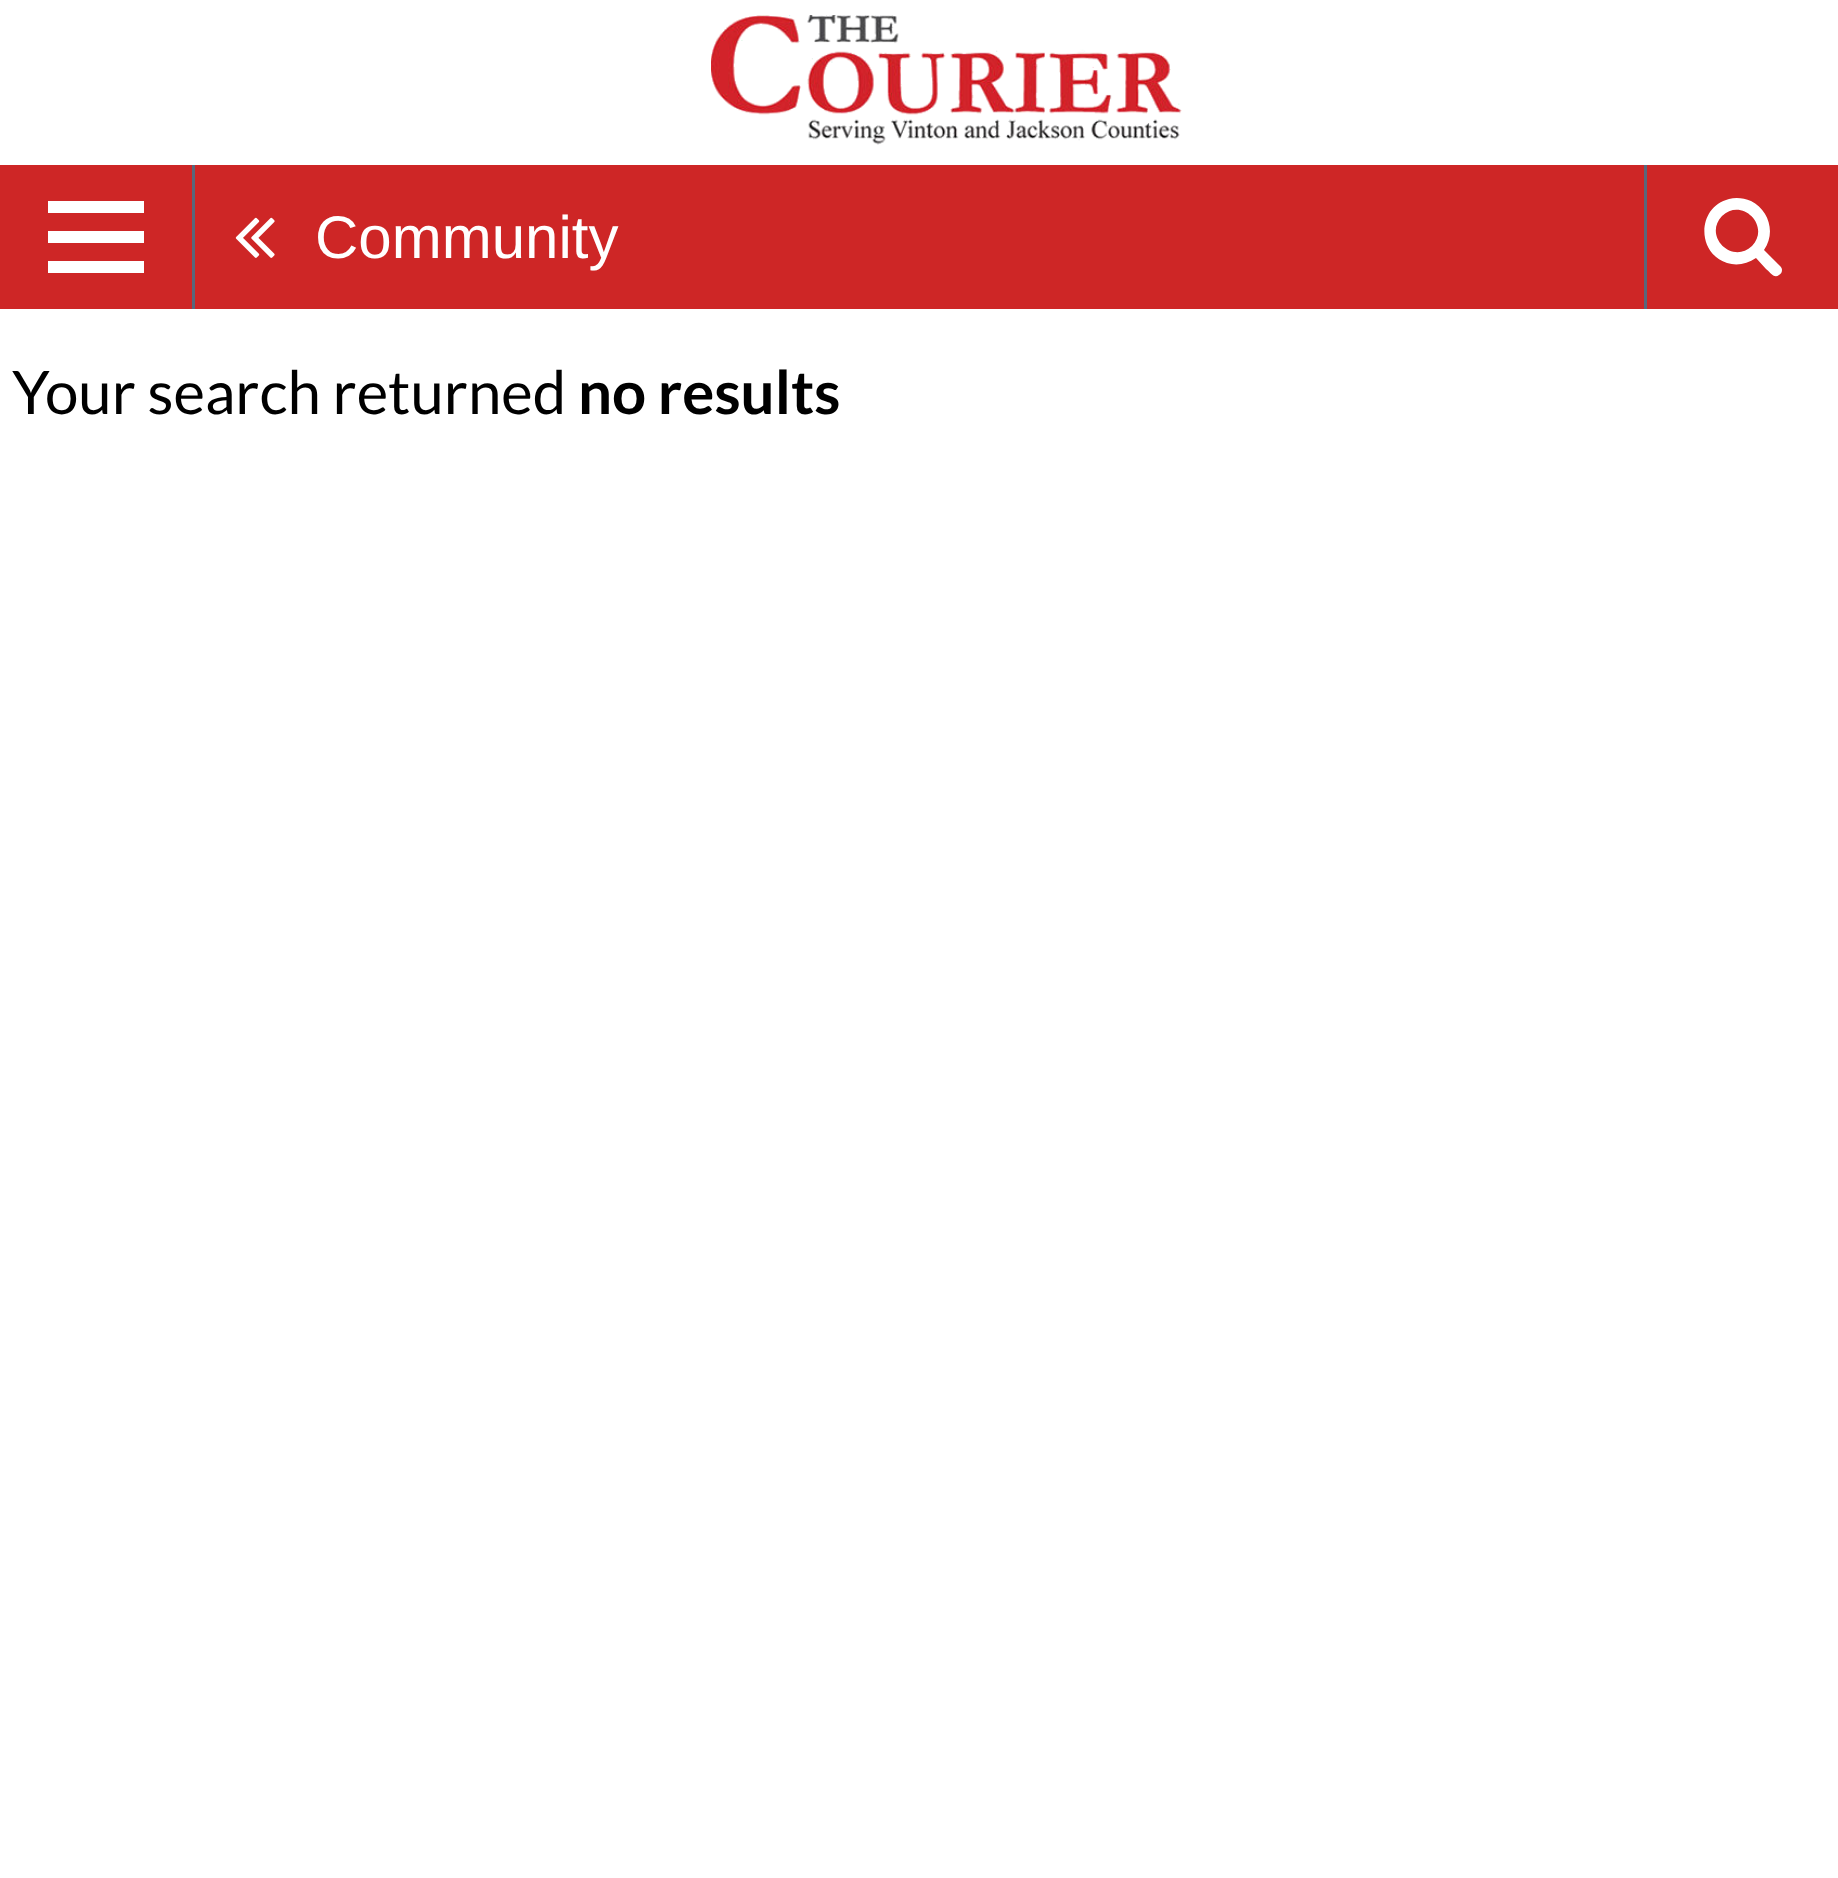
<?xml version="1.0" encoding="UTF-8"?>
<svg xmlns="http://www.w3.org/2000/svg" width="1838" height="1878">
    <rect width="100%" height="100%" fill="#FFFFFF"/>
    <image x="711" y="15" width="471" height="130" href="img_01.png"/>
    <rect x="0" y="165" width="1838" height="144" fill="#CE2626"/>
    <rect x="48" y="201" width="96" height="12" fill="#FFFFFF"/>
    <rect x="48" y="231" width="96" height="12" fill="#FFFFFF"/>
    <rect x="48" y="261" width="96" height="12" fill="#FFFFFF"/>
    <rect x="1644" y="165" width="3" height="144" fill="#57677C"/>
    <rect x="192" y="165" width="3" height="144" fill="#57677C"/>
    <image x="235" y="217" width="40" height="41" href="img_02.png"/>
    <text x="315" y="258" font-family="Liberation Sans" font-size="60" fill="#FFFFFF">Community</text>
    <path d="M 1752 246 C 1771 226 1742 197 1722 216 C 1703 236 1732 265 1752 246 Z M 1782 270 C 1782 272 1781 274 1779 275 C 1774 279 1770 272 1766 269 L 1756 258 C 1747 264 1737 266 1727 263 C 1696 253 1697 207 1729 199 C 1736 197 1744 198 1751 201 C 1769 210 1776 233 1764 250 L 1780 266 C 1781 267 1782 268 1782 270 Z" fill="#FFFFFF"/>
    <text x="12" y="414" font-family="Lato" font-size="60" fill="#000000">Your search returned</text>
    <text x="578" y="414" font-family="Lato" font-size="60" font-weight="700" fill="#000000">no results</text>
</svg>
